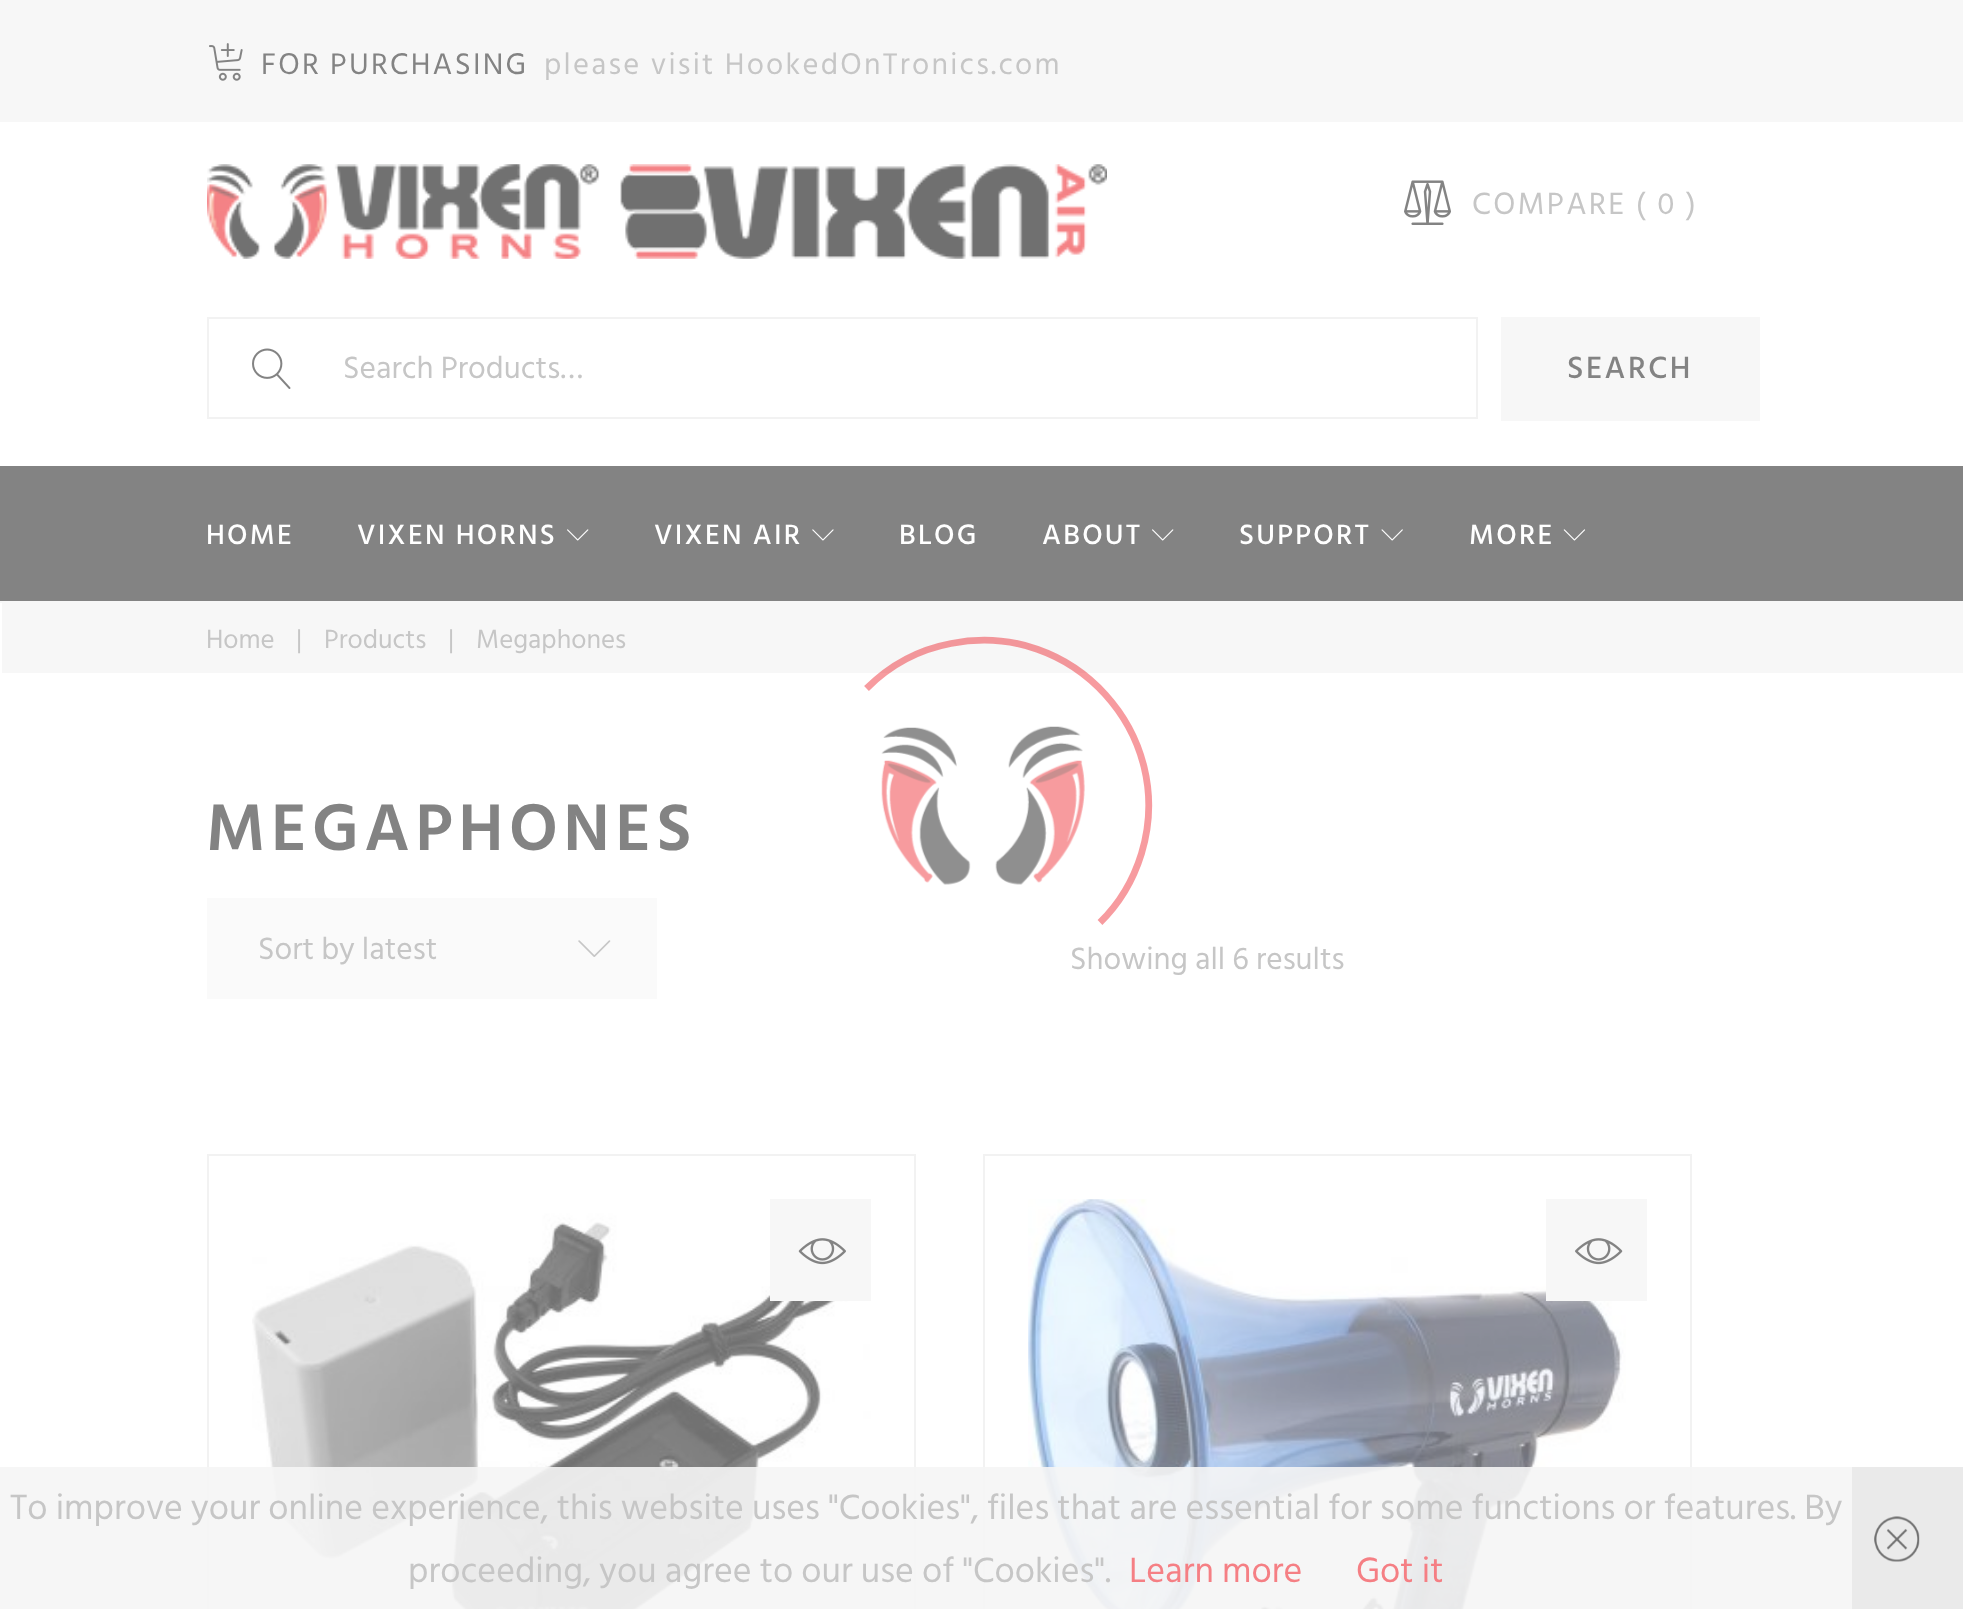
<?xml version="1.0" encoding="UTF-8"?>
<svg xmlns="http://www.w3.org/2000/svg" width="1963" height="1609">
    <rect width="100%" height="100%" fill="#FFFFFF"/>
    <rect x="0" y="0" width="1963" height="122" fill="#F7F7F7"/>
    <image x="209" y="43" width="34" height="38" href="img_01.png"/>
    <text x="261" y="74" font-family="Hind Siliguri" font-size="30.6" letter-spacing="2.25" fill="#838383">FOR PURCHASING</text>
    <text x="544" y="74" font-family="Hind Siliguri" font-size="30.6" letter-spacing="2.25" fill="#C6C6C6">please visit HookedOnTronics.com</text>
    <image x="207" y="164" width="900" height="95" href="img_02.png"/>
    <image x="1404" y="180" width="47" height="45" href="img_03.png"/>
    <text x="1472" y="214" font-family="Hind Siliguri" font-size="31.5" letter-spacing="2.25" fill="#C6C6C6">COMPARE ( 0 )</text>
    <rect x="208" y="318" width="1269" height="100" fill="none" stroke="#F2F2F2" stroke-width="2"/>
    <image x="252" y="348" width="39" height="41" href="img_04.png"/>
    <text x="343" y="378" font-family="Hind Siliguri" font-size="31.5" fill="#C6C6C6">Search Products…</text>
    <rect x="1501" y="317" width="259" height="104" fill="#F7F7F7"/>
    <text x="1567" y="378" font-family="Hind Siliguri" font-size="31.5" font-weight="500" letter-spacing="2.5" fill="#838383">SEARCH</text>
    <rect x="0" y="466" width="1963" height="135" fill="#838383"/>
    <text x="206" y="544" font-family="Hind Siliguri" font-size="28.75" font-weight="500" letter-spacing="2.25" fill="#FFFFFF">HOME</text>
    <text x="357" y="544" font-family="Hind Siliguri" font-size="28.75" font-weight="500" letter-spacing="2.25" fill="#FFFFFF">VIXEN HORNS</text>
    <image x="567" y="529" width="22" height="12" href="img_05.png"/>
    <text x="654" y="544" font-family="Hind Siliguri" font-size="28.75" font-weight="500" letter-spacing="2.25" fill="#FFFFFF">VIXEN AIR</text>
    <image x="812" y="529" width="22" height="12" href="img_06.png"/>
    <text x="899" y="544" font-family="Hind Siliguri" font-size="28.75" font-weight="500" letter-spacing="2.25" fill="#FFFFFF">BLOG</text>
    <text x="1042" y="544" font-family="Hind Siliguri" font-size="28.75" font-weight="500" letter-spacing="2.25" fill="#FFFFFF">ABOUT</text>
    <image x="1152" y="529" width="22" height="12" href="img_05.png"/>
    <text x="1239" y="544" font-family="Hind Siliguri" font-size="28.75" font-weight="500" letter-spacing="2.25" fill="#FFFFFF">SUPPORT</text>
    <image x="1381" y="529" width="22" height="12" href="img_07.png"/>
    <text x="1469" y="544" font-family="Hind Siliguri" font-size="28.75" font-weight="500" letter-spacing="2.25" fill="#FFFFFF">MORE</text>
    <image x="1563" y="529" width="23" height="12" href="img_08.png"/>
    <rect x="0" y="601" width="1963" height="2" fill="#F7F7F7"/>
    <rect x="2" y="603" width="1961" height="70" fill="#F7F7F7"/>
    <text x="206" y="648" font-family="Hind Siliguri" font-size="27" fill="#C6C6C6">Home</text>
    <text x="296" y="648" font-family="Hind Siliguri" font-size="27" fill="#C6C6C6">|</text>
    <text x="324" y="648" font-family="Hind Siliguri" font-size="27" fill="#C6C6C6">Products</text>
    <text x="448" y="648" font-family="Hind Siliguri" font-size="27" fill="#C6C6C6">|</text>
    <text x="476" y="648" font-family="Hind Siliguri" font-size="27" fill="#C6C6C6">Megaphones</text>
    <text x="206" y="850" font-family="Hind Siliguri" font-size="67.5" font-weight="600" letter-spacing="5.5" fill="#838383">MEGAPHONES</text>
    <rect x="207" y="898" width="450" height="101" fill="#FAFAFA"/>
    <text x="258" y="959" font-family="Hind Siliguri" font-size="31.5" fill="#C6C6C6">Sort by latest</text>
    <image x="578" y="940" width="33" height="17" href="img_09.png"/>
    <text x="1070" y="969" font-family="Hind Siliguri" font-size="31.5" fill="#C6C6C6">Showing all 6 results</text>
    <rect x="208" y="1155" width="707" height="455" fill="none" stroke="#F2F2F2" stroke-width="2"/>
    <image x="252" y="1199" width="619" height="410" href="img_10.png"/>
    <rect x="770" y="1199" width="101" height="102" fill="#F7F7F7"/>
    <image x="798" y="1238" width="48" height="27" href="img_11.png"/>
    <rect x="984" y="1155" width="707" height="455" fill="none" stroke="#F2F2F2" stroke-width="2"/>
    <image x="1028" y="1199" width="598" height="410" href="img_12.png"/>
    <rect x="1546" y="1199" width="101" height="102" fill="#F7F7F7"/>
    <image x="1575" y="1238" width="48" height="27" href="img_13.png"/>
    <path d="M 866.5 688.5 C 889.5 665.5 919 649.5 951 643.5 C 1073 619 1177.5 734.5 1141.5 853.5 C 1133.5 879.5 1119.5 903.5 1100 922.5" fill="none" stroke="#ED1B24" stroke-opacity="0.44" stroke-width="6.8"/>
    <image x="881" y="726" width="204" height="159" href="img_14.png"/>
    <rect x="0" y="1467" width="1852" height="142" fill="#F5F5F5" fill-opacity="0.9"/>
    <text x="10" y="1519" font-family="Hind Siliguri" font-size="36" fill="#C6C6C6">To improve your online experience, this website uses "Cookies", files that are essential for some functions or features. By</text>
    <text x="408" y="1582" font-family="Hind Siliguri" font-size="36" fill="#C6C6C6">proceeding, you agree to our use of "Cookies".</text>
    <text x="1129" y="1582" font-family="Hind Siliguri" font-size="36" fill="#F57F84">Learn more</text>
    <text x="1356" y="1582" font-family="Hind Siliguri" font-size="36" fill="#F57F84">Got it</text>
    <rect x="1852" y="1467" width="111" height="142" fill="#EAEAEA"/>
    <image x="1874" y="1516" width="46" height="46" href="img_15.png"/>
</svg>
